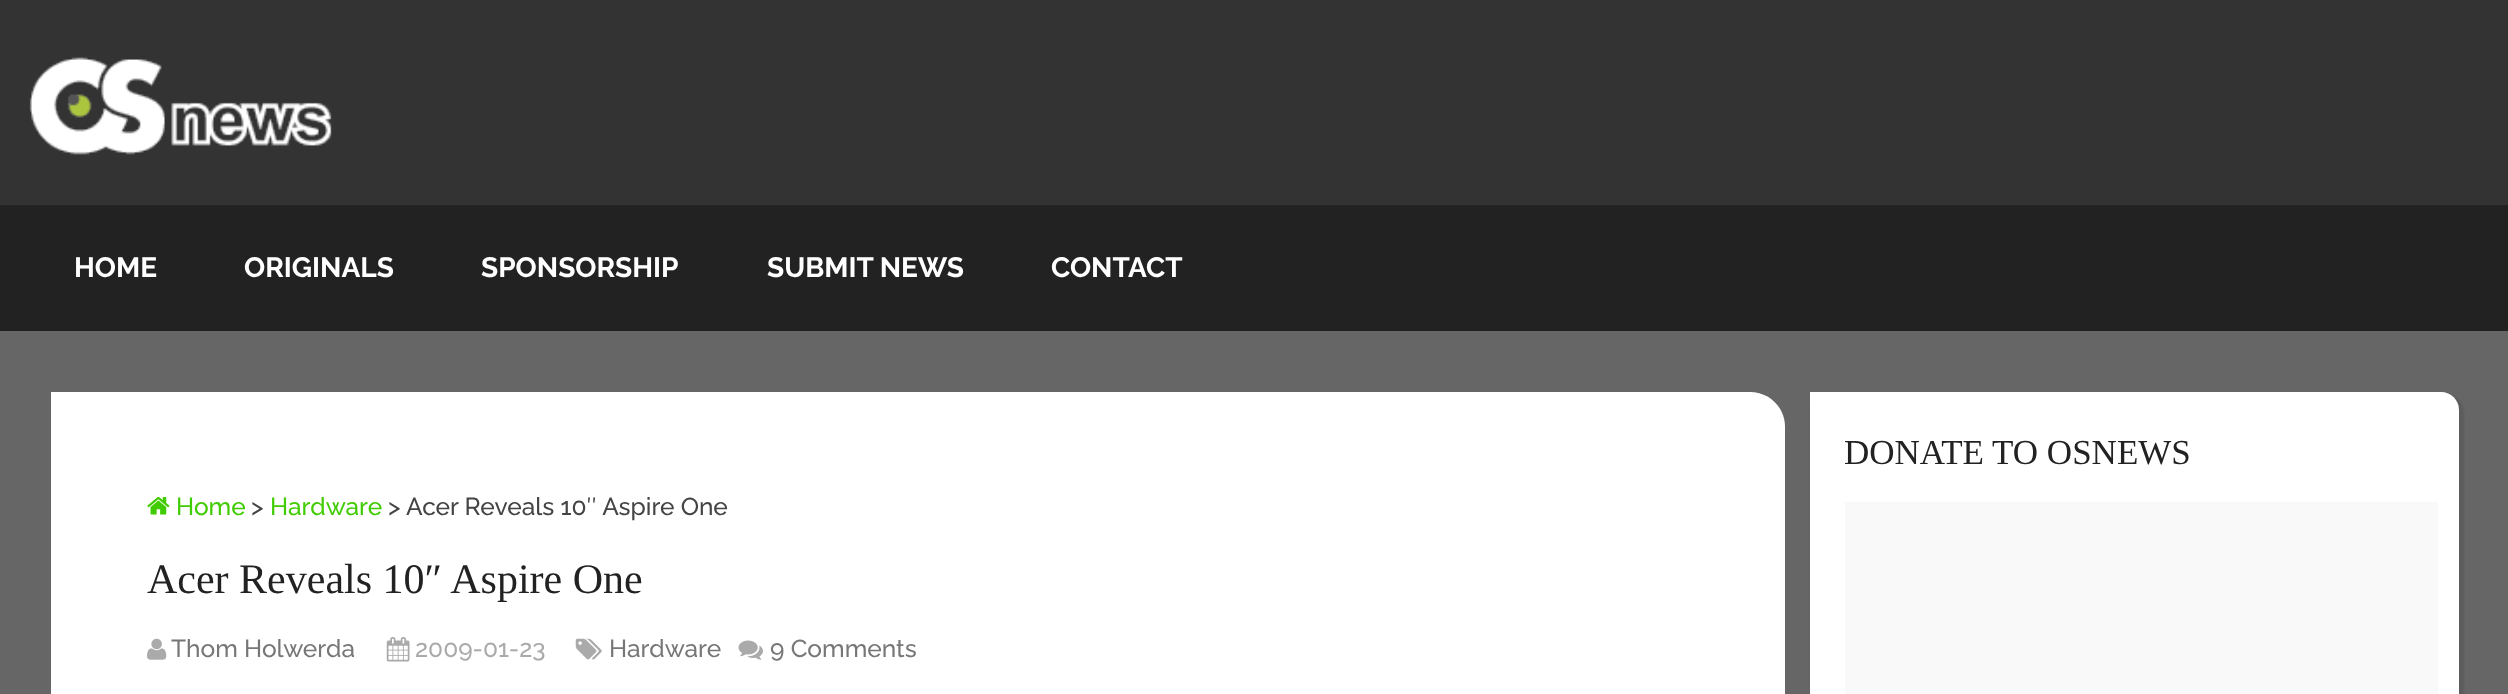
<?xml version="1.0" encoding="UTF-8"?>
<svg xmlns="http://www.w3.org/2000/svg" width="2508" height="694">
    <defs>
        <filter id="blur1" x="-50%" y="-200%" width="200%" height="500%"><feGaussianBlur stdDeviation="1"/></filter>
    </defs>
    <rect width="100%" height="100%" fill="#666666"/>
    <rect x="0" y="0" width="2508" height="205" fill="#333333"/>
    <image x="29" y="57" width="303" height="98" href="img_01.png"/>
    <rect x="0" y="205" width="2508" height="126" fill="#222222"/>
    <text x="74" y="277" font-family="Raleway" font-size="28" font-weight="700" fill="#FFFFFF">HOME</text>
    <text x="244" y="277" font-family="Raleway" font-size="28" font-weight="700" fill="#FFFFFF">ORIGINALS</text>
    <text x="481" y="277" font-family="Raleway" font-size="28" font-weight="700" fill="#FFFFFF">SPONSORSHIP</text>
    <text x="767" y="277" font-family="Raleway" font-size="28" font-weight="700" fill="#FFFFFF">SUBMIT NEWS</text>
    <text x="1051" y="277" font-family="Raleway" font-size="28" font-weight="700" fill="#FFFFFF">CONTACT</text>
    <rect x="1811" y="394" width="653" height="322" rx="19" fill="#000000" fill-opacity="0.1" filter="url(#blur1)"/>
    <path d="M 1810 392 H 2441 C 2451 392 2459 400 2459 410 V 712 H 1828 C 1818 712 1810 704 1810 694 Z" fill="#FFFFFF"/>
    <text x="1844" y="464" font-family="Liberation Serif" font-size="35" fill="#222222">DONATE TO OSNEWS</text>
    <rect x="1845" y="502" width="593" height="192" fill="#F9F9F9"/>
    <path d="M 51 392 H 1750 C 1769.5 392 1785 407.5 1785 427 V 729 H 86 C 66.5 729 51 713.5 51 694 Z" fill="#FFFFFF"/>
    <image x="147" y="497" width="23" height="18" href="img_02.png"/>
    <text x="176" y="515" font-family="Raleway" font-size="24.5" font-weight="500" fill="#41CC02">Home</text>
    <text x="251" y="515" font-family="Raleway" font-size="24.5" font-weight="500" fill="#444444">&gt;</text>
    <text x="270" y="515" font-family="Raleway" font-size="24.5" font-weight="500" fill="#41CC02">Hardware</text>
    <text x="388" y="515" font-family="Raleway" font-size="24.5" font-weight="500" fill="#444444">&gt; Acer Reveals 10″ Aspire One</text>
    <text x="147" y="593" font-family="Liberation Serif" font-size="42" fill="#222222">Acer Reveals 10″ Aspire One</text>
    <image x="147" y="638" width="20" height="22" href="img_03.png"/>
    <text x="171" y="657" font-family="Raleway" font-size="24.5" font-weight="500" fill="#777777">Thom Holwerda</text>
    <image x="386" y="637" width="24" height="25" href="img_04.png"/>
    <text x="415" y="657" font-family="Raleway" font-size="24.5" font-weight="500" fill="#AAAAAA">2009-01-23</text>
    <image x="575" y="638" width="27" height="22" href="img_05.png"/>
    <text x="609" y="657" font-family="Raleway" font-size="24.5" font-weight="500" fill="#777777">Hardware</text>
    <image x="738" y="640" width="25" height="20" href="img_06.png"/>
    <text x="770" y="657" font-family="Raleway" font-size="24.5" font-weight="500" fill="#777777">9 Comments</text>
</svg>
